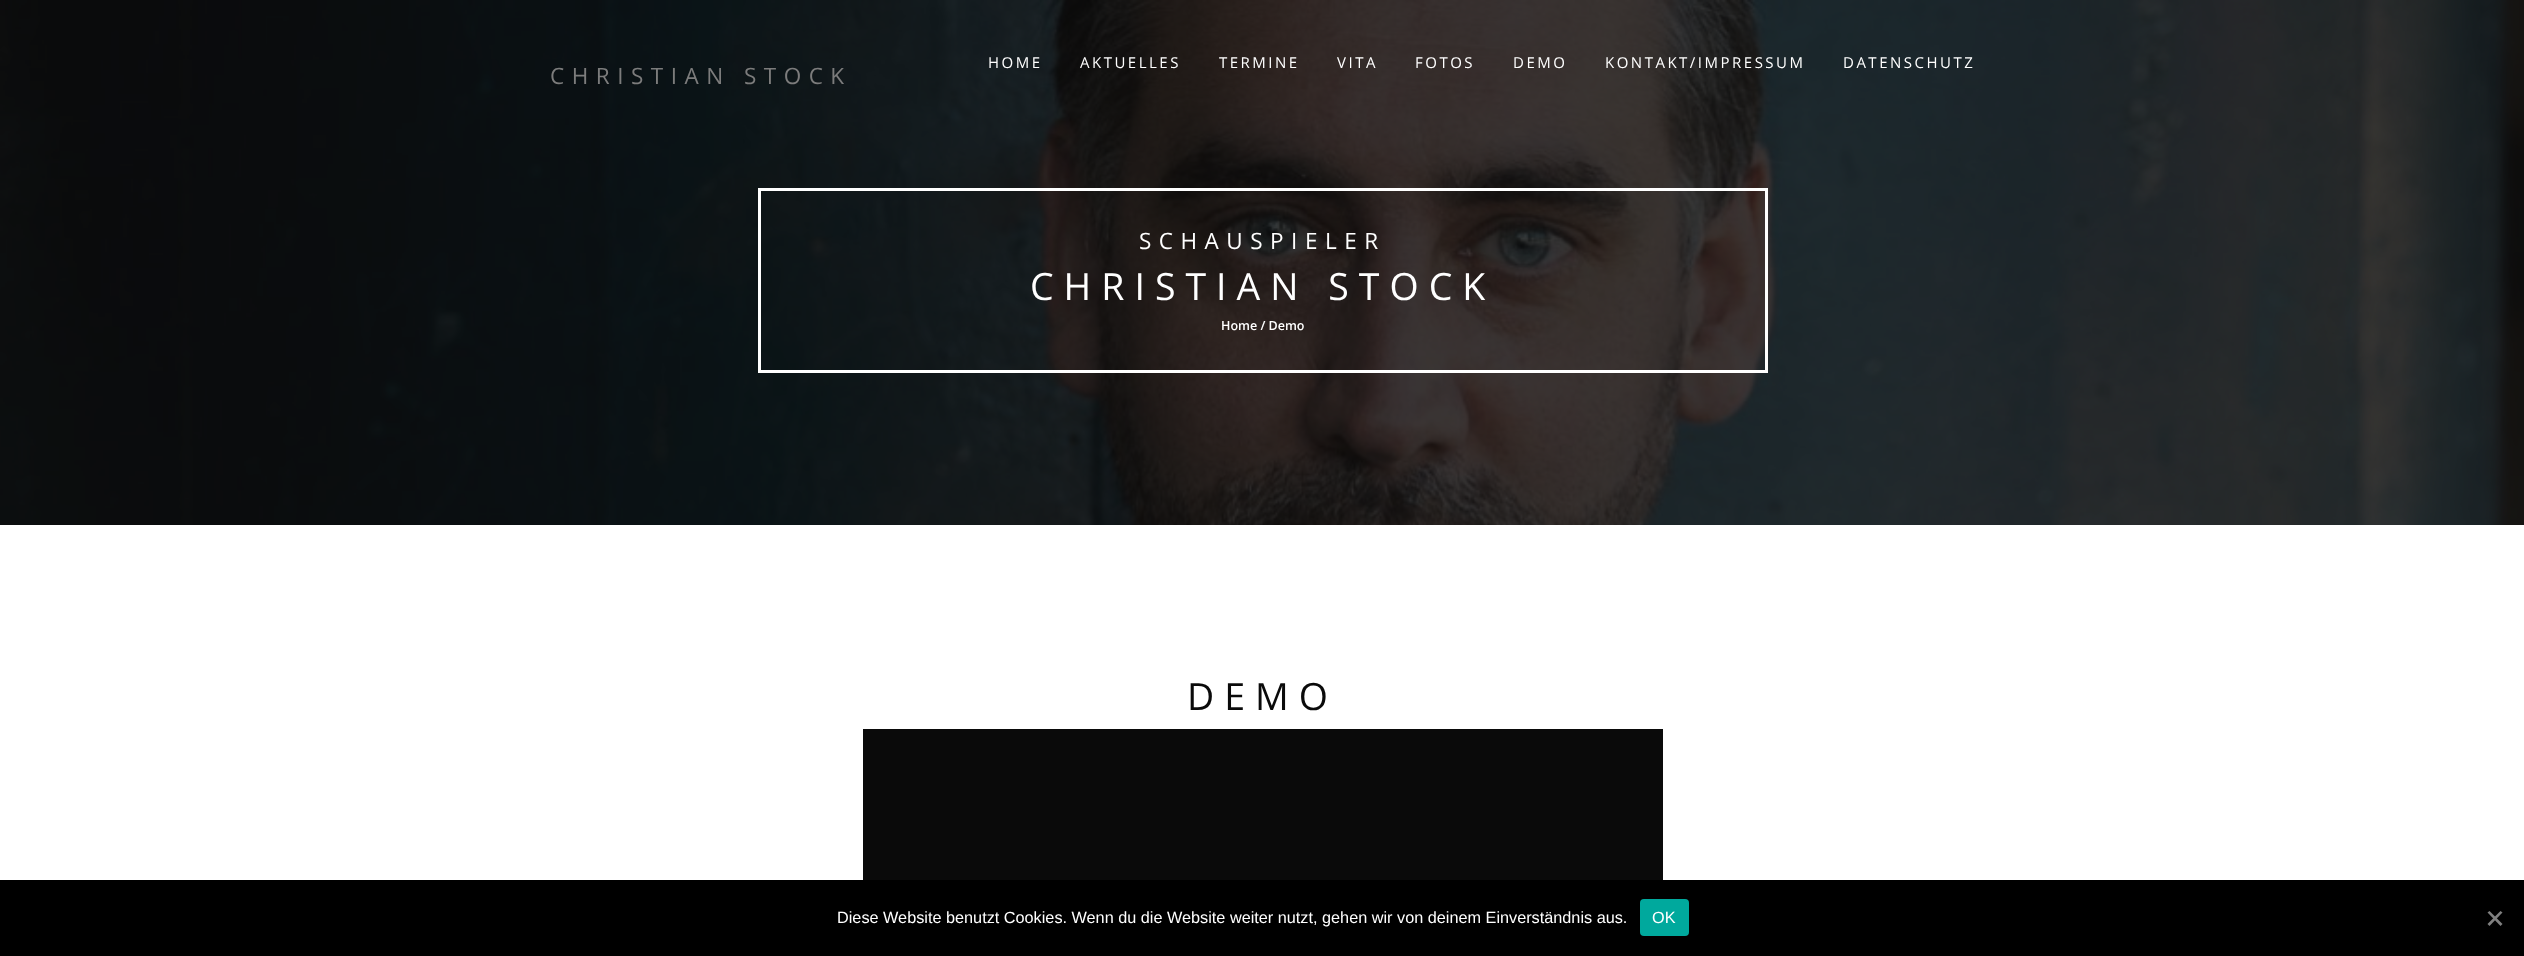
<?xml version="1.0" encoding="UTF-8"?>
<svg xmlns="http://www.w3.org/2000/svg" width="2524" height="956">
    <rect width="100%" height="100%" fill="#FFFFFF"/>
    <image x="0" y="0" width="2524" height="525" href="img_01.png"/>
    <text x="988" y="68" font-family="Open Sans" font-size="15" letter-spacing="2.5" fill="#FFFFFF">HOME</text>
    <text x="1080" y="68" font-family="Open Sans" font-size="15" letter-spacing="2.5" fill="#FFFFFF">AKTUELLES</text>
    <text x="1219" y="68" font-family="Open Sans" font-size="15" letter-spacing="2.5" fill="#FFFFFF">TERMINE</text>
    <text x="1337" y="68" font-family="Open Sans" font-size="15" letter-spacing="2.5" fill="#FFFFFF">VITA</text>
    <text x="1415" y="68" font-family="Open Sans" font-size="15" letter-spacing="2.5" fill="#FFFFFF">FOTOS</text>
    <text x="1513" y="68" font-family="Open Sans" font-size="15" letter-spacing="2.5" fill="#FFFFFF">DEMO</text>
    <text x="1605" y="68" font-family="Open Sans" font-size="15" letter-spacing="2.5" fill="#FFFFFF">KONTAKT/IMPRESSUM</text>
    <text x="1843" y="68" font-family="Open Sans" font-size="15" letter-spacing="2.5" fill="#FFFFFF">DATENSCHUTZ</text>
    <text x="550" y="84" font-family="Open Sans" font-size="22.5" letter-spacing="7.5" fill="#7C7C7C">CHRISTIAN STOCK</text>
    <rect x="759.5" y="189.5" width="1007" height="182" fill="none" stroke="#FFFFFF" stroke-width="3"/>
    <text x="1139" y="249" font-family="Open Sans" font-size="22.5" letter-spacing="7.5" fill="#FFFFFF">SCHAUSPIELER</text>
    <text x="1030" y="300" font-family="Open Sans" font-size="37.5" letter-spacing="10" fill="#FFFFFF">CHRISTIAN STOCK</text>
    <text x="1221" y="330" font-family="Open Sans" font-size="12.5" font-weight="600" fill="#FFFFFF">Home / Demo</text>
    <text x="1187" y="710" font-family="Open Sans" font-size="37.5" letter-spacing="10" fill="#0A0A0A">DEMO</text>
    <image x="863" y="729" width="800" height="151" href="img_02.png"/>
    <rect x="0" y="880" width="2524" height="76" fill="#000000"/>
    <text x="837" y="923" font-family="Liberation Sans" font-size="16.25" fill="#FFFFFF">Diese Website benutzt Cookies. Wenn du die Website weiter nutzt, gehen wir von deinem Einverständnis aus.</text>
    <rect x="1640" y="899" width="49" height="37" rx="4" fill="#00A99D"/>
    <text x="1652" y="923" font-family="Liberation Sans" font-size="16.25" fill="#FFFFFF">OK</text>
    <path d="M 2500.5 911 L 2502.5 912.5 L 2489.5 926 L 2487.5 924 Z" fill="#808080"/>
    <path d="M 2487.5 912.5 L 2489.5 911 L 2502.5 924 L 2500.5 926 Z" fill="#808080"/>
</svg>
